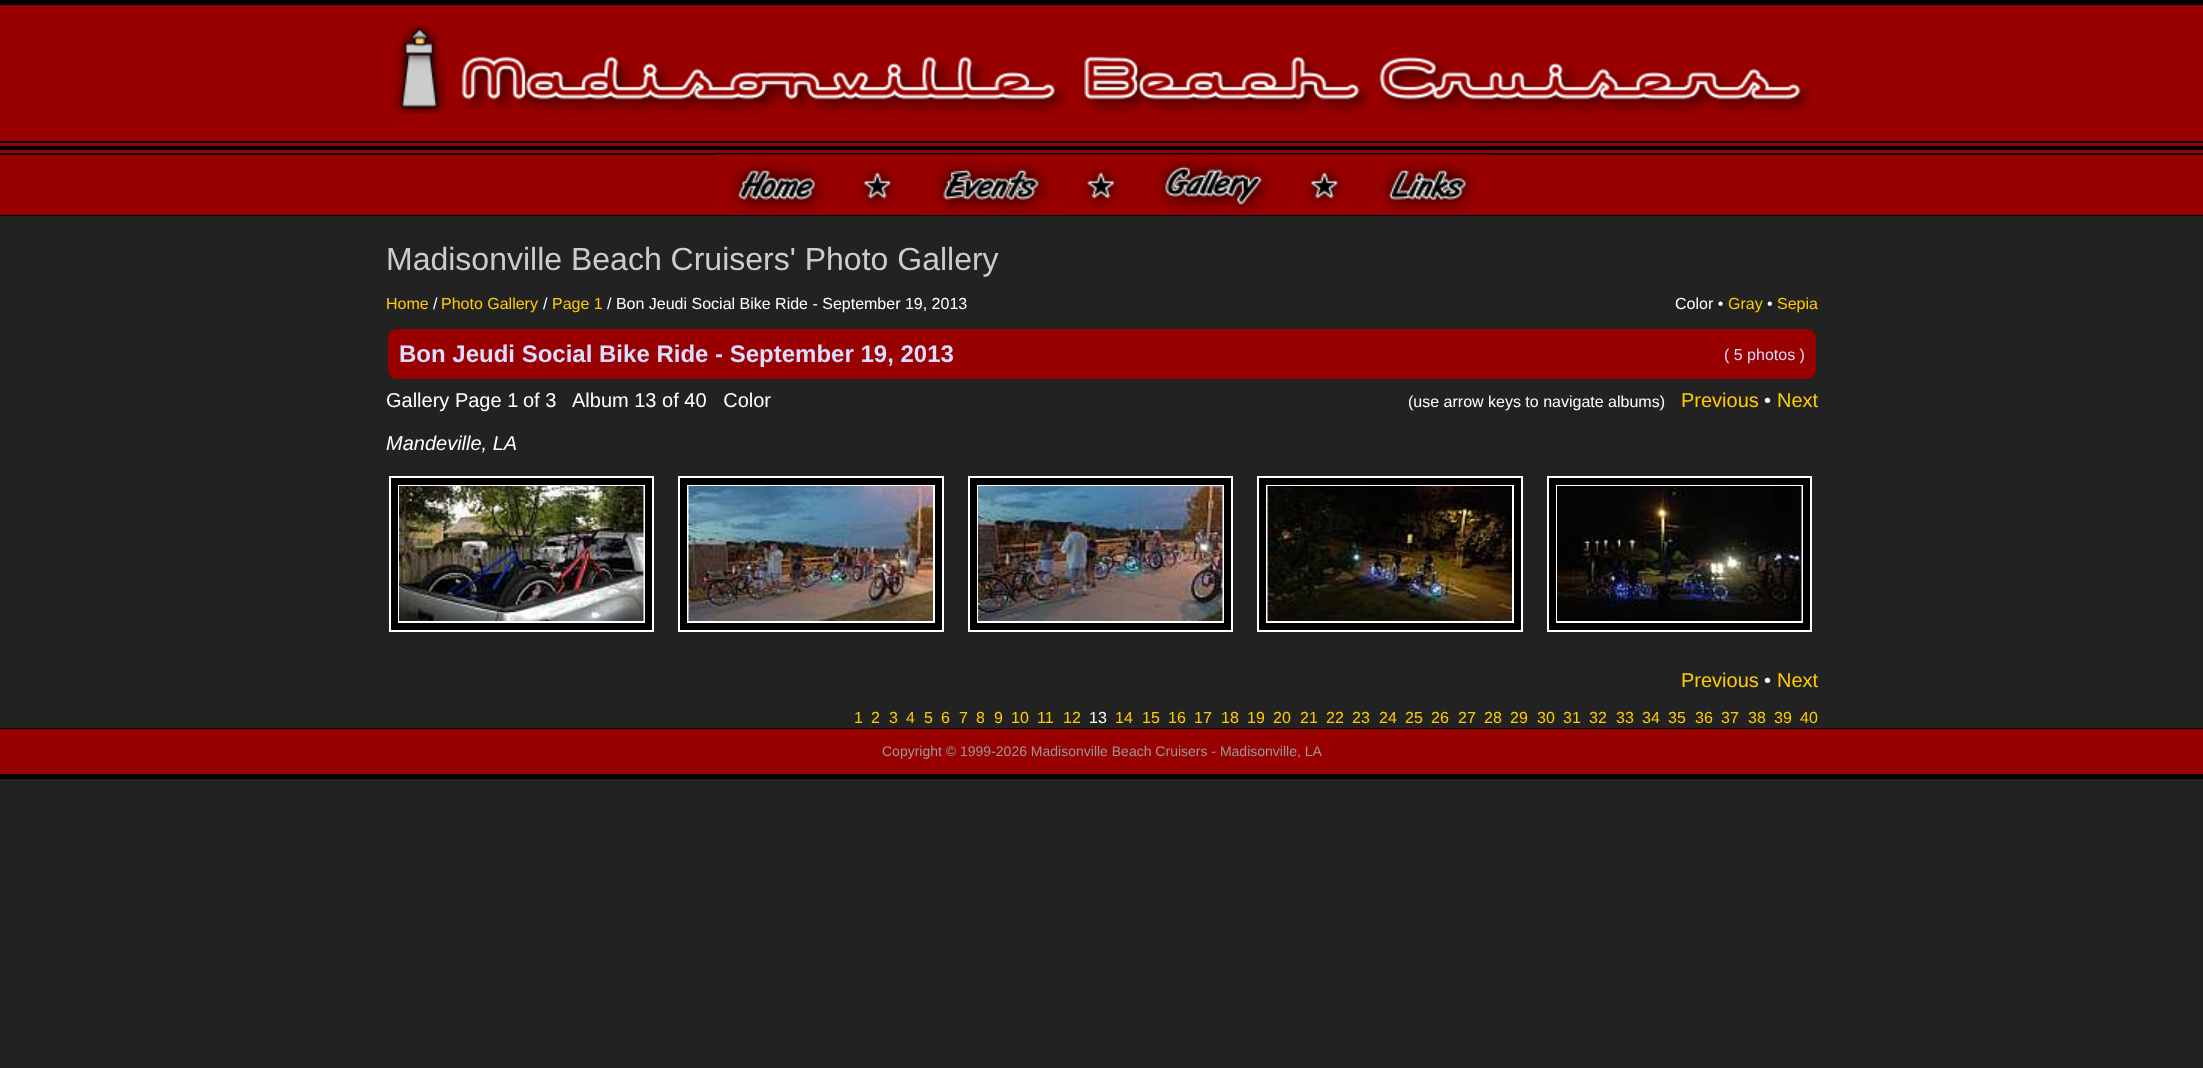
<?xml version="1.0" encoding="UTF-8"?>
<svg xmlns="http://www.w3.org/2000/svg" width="2203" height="1068">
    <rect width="100%" height="100%" fill="#222222"/>
    <rect x="0" y="0" width="2203" height="5" fill="#000000"/>
    <rect x="0" y="5" width="2203" height="136" fill="#990000"/>
    <image x="390" y="24" width="58" height="90" href="img_01.png"/>
    <image x="459" y="55" width="610" height="61" href="img_02.png"/>
    <image x="1081" y="54" width="731" height="62" href="img_03.png"/>
    <rect x="0" y="141" width="2203" height="2" fill="#000000"/>
    <rect x="0" y="143" width="2203" height="3" fill="#990000"/>
    <rect x="0" y="146" width="2203" height="4" fill="#000000"/>
    <rect x="0" y="150" width="2203" height="3" fill="#990000"/>
    <rect x="0" y="153" width="2203" height="2" fill="#000000"/>
    <rect x="0" y="155" width="2203" height="60" fill="#990000"/>
    <image x="714" y="154" width="125" height="61" href="img_04.png"/>
    <image x="838" y="154" width="80" height="54" href="img_05.png"/>
    <image x="918" y="154" width="144" height="61" href="img_06.png"/>
    <image x="1062" y="154" width="80" height="54" href="img_07.png"/>
    <image x="1141" y="154" width="145" height="61" href="img_08.png"/>
    <image x="1285" y="154" width="80" height="54" href="img_09.png"/>
    <image x="1365" y="154" width="125" height="61" href="img_10.png"/>
    <rect x="0" y="215" width="2203" height="1" fill="#000000"/>
    <text x="386" y="270" font-family="Liberation Sans" font-size="32" fill="#CCCCCC">Madisonville Beach Cruisers' Photo Gallery</text>
    <text x="386" y="309" font-family="Liberation Sans" font-size="16" fill="#FFCC00">Home</text>
    <text x="433" y="309" font-family="Liberation Sans" font-size="16" fill="#FFFFFF">/</text>
    <text x="441" y="309" font-family="Liberation Sans" font-size="16" fill="#FFCC00">Photo Gallery</text>
    <text x="543" y="309" font-family="Liberation Sans" font-size="16" fill="#FFFFFF">/</text>
    <text x="552" y="309" font-family="Liberation Sans" font-size="16" fill="#FFCC00">Page 1</text>
    <text x="607" y="309" font-family="Liberation Sans" font-size="16" fill="#FFFFFF">/ Bon Jeudi Social Bike Ride - September 19, 2013</text>
    <text x="1675" y="309" font-family="Liberation Sans" font-size="16" fill="#FFFFFF">Color •</text>
    <text x="1728" y="309" font-family="Liberation Sans" font-size="16" fill="#FFCC00">Gray</text>
    <text x="1767" y="309" font-family="Liberation Sans" font-size="16" fill="#FFFFFF">•</text>
    <text x="1777" y="309" font-family="Liberation Sans" font-size="16" fill="#FFCC00">Sepia</text>
    <rect x="387" y="328" width="1430" height="52" rx="10" fill="#990000" stroke="#222222" stroke-width="2"/>
    <text x="399" y="362" font-family="Liberation Sans" font-size="24" font-weight="700" fill="#DDDDFF">Bon Jeudi Social Bike Ride - September 19, 2013</text>
    <text x="1724" y="360" font-family="Liberation Sans" font-size="16" fill="#DDDDFF">( 5 photos )</text>
    <text x="386" y="407" font-family="Liberation Sans" font-size="20" fill="#FFFFFF">Gallery Page 1</text>
    <text x="523" y="407" font-family="Liberation Sans" font-size="20" fill="#FFFFFF">of 3</text>
    <text x="572" y="407" font-family="Liberation Sans" font-size="20" fill="#FFFFFF" xml:space="preserve">Album 13 of 40   Color</text>
    <text x="1408" y="407" font-family="Liberation Sans" font-size="16" fill="#FFFFFF">(use arrow keys to navigate albums)</text>
    <text x="1681" y="407" font-family="Liberation Sans" font-size="20" fill="#FFCC00">Previous</text>
    <text x="1764" y="407" font-family="Liberation Sans" font-size="20" fill="#FFFFFF">•</text>
    <text x="1777" y="407" font-family="Liberation Sans" font-size="20" fill="#FFCC00">Next</text>
    <text x="386" y="450" font-family="Liberation Sans" font-size="20" font-style="italic" fill="#FFFFFF">Mandeville, LA</text>
    <rect x="390" y="477" width="263" height="154" fill="#000000" stroke="#FFFFFF" stroke-width="2"/>
    <rect x="399" y="486" width="245" height="136" fill="none" stroke="#FFFFFF" stroke-width="2"/>
    <image x="399" y="486" width="245" height="135" href="img_11.png"/>
    <rect x="679" y="477" width="264" height="154" fill="#000000" stroke="#FFFFFF" stroke-width="2"/>
    <rect x="688" y="486" width="246" height="136" fill="none" stroke="#FFFFFF" stroke-width="2"/>
    <image x="688" y="486" width="245" height="135" href="img_12.png"/>
    <rect x="969" y="477" width="263" height="154" fill="#000000" stroke="#FFFFFF" stroke-width="2"/>
    <rect x="978" y="486" width="245" height="136" fill="none" stroke="#FFFFFF" stroke-width="2"/>
    <image x="978" y="486" width="245" height="135" href="img_13.png"/>
    <rect x="1258" y="477" width="264" height="154" fill="#000000" stroke="#FFFFFF" stroke-width="2"/>
    <rect x="1267" y="486" width="246" height="136" fill="none" stroke="#FFFFFF" stroke-width="2"/>
    <image x="1267" y="486" width="245" height="135" href="img_14.png"/>
    <rect x="1548" y="477" width="263" height="154" fill="#000000" stroke="#FFFFFF" stroke-width="2"/>
    <rect x="1557" y="486" width="245" height="136" fill="none" stroke="#FFFFFF" stroke-width="2"/>
    <image x="1557" y="486" width="245" height="135" href="img_15.png"/>
    <text x="1681" y="687" font-family="Liberation Sans" font-size="20" fill="#FFCC00">Previous</text>
    <text x="1764" y="687" font-family="Liberation Sans" font-size="20" fill="#FFFFFF">•</text>
    <text x="1777" y="687" font-family="Liberation Sans" font-size="20" fill="#FFCC00">Next</text>
    <text x="854" y="723" font-family="Liberation Sans" font-size="16" fill="#FFCC00">1</text>
    <text x="871" y="723" font-family="Liberation Sans" font-size="16" fill="#FFCC00">2</text>
    <text x="889" y="723" font-family="Liberation Sans" font-size="16" fill="#FFCC00">3</text>
    <text x="906" y="723" font-family="Liberation Sans" font-size="16" fill="#FFCC00">4</text>
    <text x="924" y="723" font-family="Liberation Sans" font-size="16" fill="#FFCC00">5</text>
    <text x="941" y="723" font-family="Liberation Sans" font-size="16" fill="#FFCC00">6</text>
    <text x="959" y="723" font-family="Liberation Sans" font-size="16" fill="#FFCC00">7</text>
    <text x="976" y="723" font-family="Liberation Sans" font-size="16" fill="#FFCC00">8</text>
    <text x="994" y="723" font-family="Liberation Sans" font-size="16" fill="#FFCC00">9</text>
    <text x="1011" y="723" font-family="Liberation Sans" font-size="16" fill="#FFCC00">10</text>
    <text x="1037" y="723" font-family="Liberation Sans" font-size="16" fill="#FFCC00">11</text>
    <text x="1063" y="723" font-family="Liberation Sans" font-size="16" fill="#FFCC00">12</text>
    <text x="1089" y="723" font-family="Liberation Sans" font-size="16" fill="#FFFFFF">13</text>
    <text x="1115" y="723" font-family="Liberation Sans" font-size="16" fill="#FFCC00">14</text>
    <text x="1142" y="723" font-family="Liberation Sans" font-size="16" fill="#FFCC00">15</text>
    <text x="1168" y="723" font-family="Liberation Sans" font-size="16" fill="#FFCC00">16</text>
    <text x="1194" y="723" font-family="Liberation Sans" font-size="16" fill="#FFCC00">17</text>
    <text x="1221" y="723" font-family="Liberation Sans" font-size="16" fill="#FFCC00">18</text>
    <text x="1247" y="723" font-family="Liberation Sans" font-size="16" fill="#FFCC00">19</text>
    <text x="1273" y="723" font-family="Liberation Sans" font-size="16" fill="#FFCC00">20</text>
    <text x="1300" y="723" font-family="Liberation Sans" font-size="16" fill="#FFCC00">21</text>
    <text x="1326" y="723" font-family="Liberation Sans" font-size="16" fill="#FFCC00">22</text>
    <text x="1352" y="723" font-family="Liberation Sans" font-size="16" fill="#FFCC00">23</text>
    <text x="1379" y="723" font-family="Liberation Sans" font-size="16" fill="#FFCC00">24</text>
    <text x="1405" y="723" font-family="Liberation Sans" font-size="16" fill="#FFCC00">25</text>
    <text x="1431" y="723" font-family="Liberation Sans" font-size="16" fill="#FFCC00">26</text>
    <text x="1458" y="723" font-family="Liberation Sans" font-size="16" fill="#FFCC00">27</text>
    <text x="1484" y="723" font-family="Liberation Sans" font-size="16" fill="#FFCC00">28</text>
    <text x="1510" y="723" font-family="Liberation Sans" font-size="16" fill="#FFCC00">29</text>
    <text x="1537" y="723" font-family="Liberation Sans" font-size="16" fill="#FFCC00">30</text>
    <text x="1563" y="723" font-family="Liberation Sans" font-size="16" fill="#FFCC00">31</text>
    <text x="1589" y="723" font-family="Liberation Sans" font-size="16" fill="#FFCC00">32</text>
    <text x="1616" y="723" font-family="Liberation Sans" font-size="16" fill="#FFCC00">33</text>
    <text x="1642" y="723" font-family="Liberation Sans" font-size="16" fill="#FFCC00">34</text>
    <text x="1668" y="723" font-family="Liberation Sans" font-size="16" fill="#FFCC00">35</text>
    <text x="1695" y="723" font-family="Liberation Sans" font-size="16" fill="#FFCC00">36</text>
    <text x="1721" y="723" font-family="Liberation Sans" font-size="16" fill="#FFCC00">37</text>
    <text x="1748" y="723" font-family="Liberation Sans" font-size="16" fill="#FFCC00">38</text>
    <text x="1774" y="723" font-family="Liberation Sans" font-size="16" fill="#FFCC00">39</text>
    <text x="1800" y="723" font-family="Liberation Sans" font-size="16" fill="#FFCC00">40</text>
    <rect x="0" y="728" width="2203" height="1" fill="#000000"/>
    <rect x="0" y="729" width="2203" height="45" fill="#990000"/>
    <text x="882" y="756" font-family="Liberation Sans" font-size="14" fill="#999999">Copyright © 1999-2026 Madisonville Beach Cruisers - Madisonville, LA</text>
    <rect x="0" y="774" width="2203" height="5" fill="#000000"/>
</svg>
